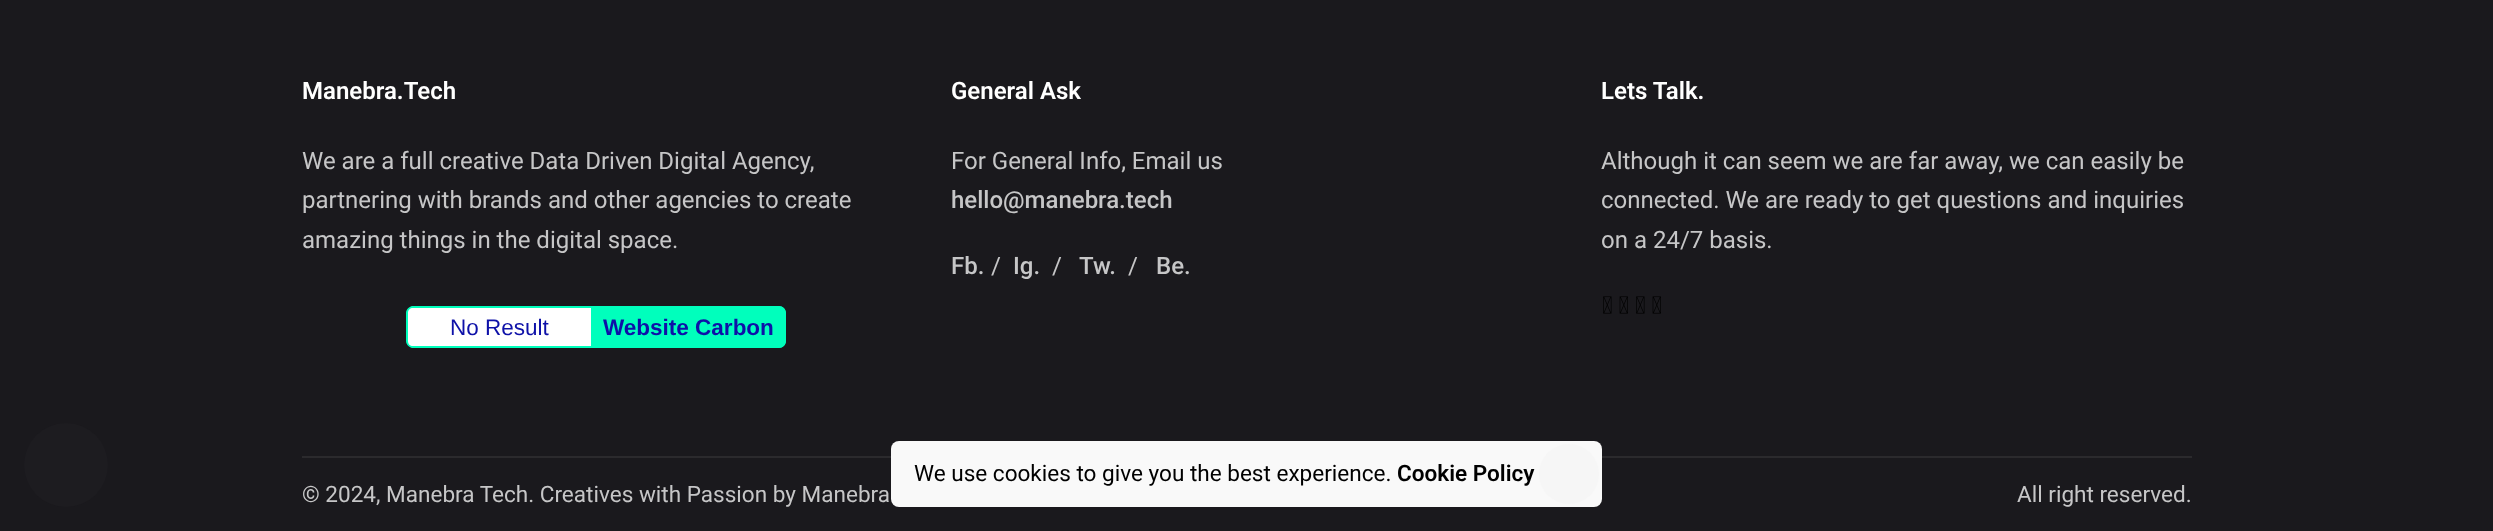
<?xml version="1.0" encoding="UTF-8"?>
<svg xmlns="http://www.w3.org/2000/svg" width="2493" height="531">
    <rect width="100%" height="100%" fill="#1A191D"/>
    <circle cx="66" cy="465" r="42" fill="#1D1C20"/>
    <text x="302" y="99" font-family="Roboto" font-size="24" font-weight="600" fill="#FFFFFF">Manebra.Tech</text>
    <text font-family="Roboto" font-size="24" fill="#C6C6C7">
        <tspan x="302" y="169">We are a full creative Data Driven Digital Agency,</tspan>
        <tspan x="302" y="208">partnering with brands and other agencies to create</tspan>
        <tspan x="302" y="248">amazing things in the digital space.</tspan>
    </text>
    <path d="M 415 306 H 591 V 348 H 415 C 410.5 348 407 344.5 407 340 V 314 C 407 309.5 410.5 306 415 306 Z" fill="#FFFFFF"/>
    <path d="M 413 306 H 591 V 348 H 413 C 410 348 406 345 406 341 V 313 C 406 309 410 306 413 306 Z M 413 308 H 591 V 346 H 413 C 410 346 408 344 408 341 V 313 C 408 310 410 308 413 308 Z" fill="#00FFBC" fill-rule="evenodd"/>
    <text x="450" y="335" font-family="Liberation Sans" font-size="22.5" fill="#0E11A8">No Result</text>
    <path d="M 591 306 H 778 C 782.5 306 786 309.5 786 314 V 340 C 786 344.5 782.5 348 778 348 H 591 Z" fill="#00FFBC"/>
    <path d="M 591 306 H 779 C 783 306 786 309 786 313 V 341 C 786 345 783 348 779 348 H 591 Z M 591 308 H 779 C 782 308 784 310 784 313 V 341 C 784 344 782 346 779 346 H 591 Z" fill="#00FFBC" fill-rule="evenodd"/>
    <text x="603" y="335" font-family="Liberation Sans" font-size="22.5" font-weight="700" fill="#0E11A8">Website Carbon</text>
    <text x="951" y="99" font-family="Roboto" font-size="24" font-weight="600" fill="#FFFFFF">General Ask</text>
    <text x="951" y="169" font-family="Roboto" font-size="24" fill="#C6C6C7">For General Info, Email us</text>
    <text x="951" y="208" font-family="Roboto" font-size="24" font-weight="500" fill="#C6C6C7">hello@manebra.tech</text>
    <text x="951" y="274" font-family="Roboto" font-size="24" font-weight="500" fill="#C6C6C7">Fb.</text>
    <text x="991" y="274" font-family="Roboto" font-size="24" fill="#C6C6C7">/</text>
    <text x="1013" y="274" font-family="Roboto" font-size="24" font-weight="500" fill="#C6C6C7">Ig.</text>
    <text x="1052" y="274" font-family="Roboto" font-size="24" fill="#C6C6C7">/</text>
    <text x="1079" y="274" font-family="Roboto" font-size="24" font-weight="500" fill="#C6C6C7">Tw.</text>
    <text x="1128" y="274" font-family="Roboto" font-size="24" fill="#C6C6C7">/</text>
    <text x="1156" y="274" font-family="Roboto" font-size="24" font-weight="500" fill="#C6C6C7">Be.</text>
    <text x="1601" y="99" font-family="Roboto" font-size="24" font-weight="600" fill="#FFFFFF">Lets Talk.</text>
    <text font-family="Roboto" font-size="24" fill="#C6C6C7">
        <tspan x="1601" y="169">Although it can seem we are far away, we can easily be</tspan>
        <tspan x="1601" y="208">connected. We are ready to get questions and inquiries</tspan>
        <tspan x="1601" y="248">on a 24/7 basis.</tspan>
    </text>
    <image x="1603" y="296" width="9" height="18" href="img_01.png"/>
    <image x="1619" y="296" width="9" height="18" href="img_02.png"/>
    <image x="1636" y="296" width="9" height="18" href="img_01.png"/>
    <image x="1652" y="296" width="9" height="18" href="img_02.png"/>
    <rect x="302" y="456" width="1890" height="2" fill="#2B2A2D"/>
    <text x="302" y="502" font-family="Roboto" font-size="22.55" fill="#C6C6C7">© 2024, Manebra Tech. Creatives with Passion by Manebra</text>
    <text x="2017" y="502" font-family="Roboto" font-size="22.55" fill="#C6C6C7">All right reserved.</text>
    <rect x="891" y="441" width="711" height="66" rx="8" fill="#F9F9F9"/>
    <text x="914" y="481" font-family="Roboto" font-size="22.55" fill="#000000">We use cookies to give you the best experience.</text>
    <text x="1397" y="481" font-family="Roboto" font-size="22.55" font-weight="600" fill="#000000">Cookie Policy</text>
    <circle cx="1569" cy="474" r="30" fill="#F6F6F6"/>
</svg>
